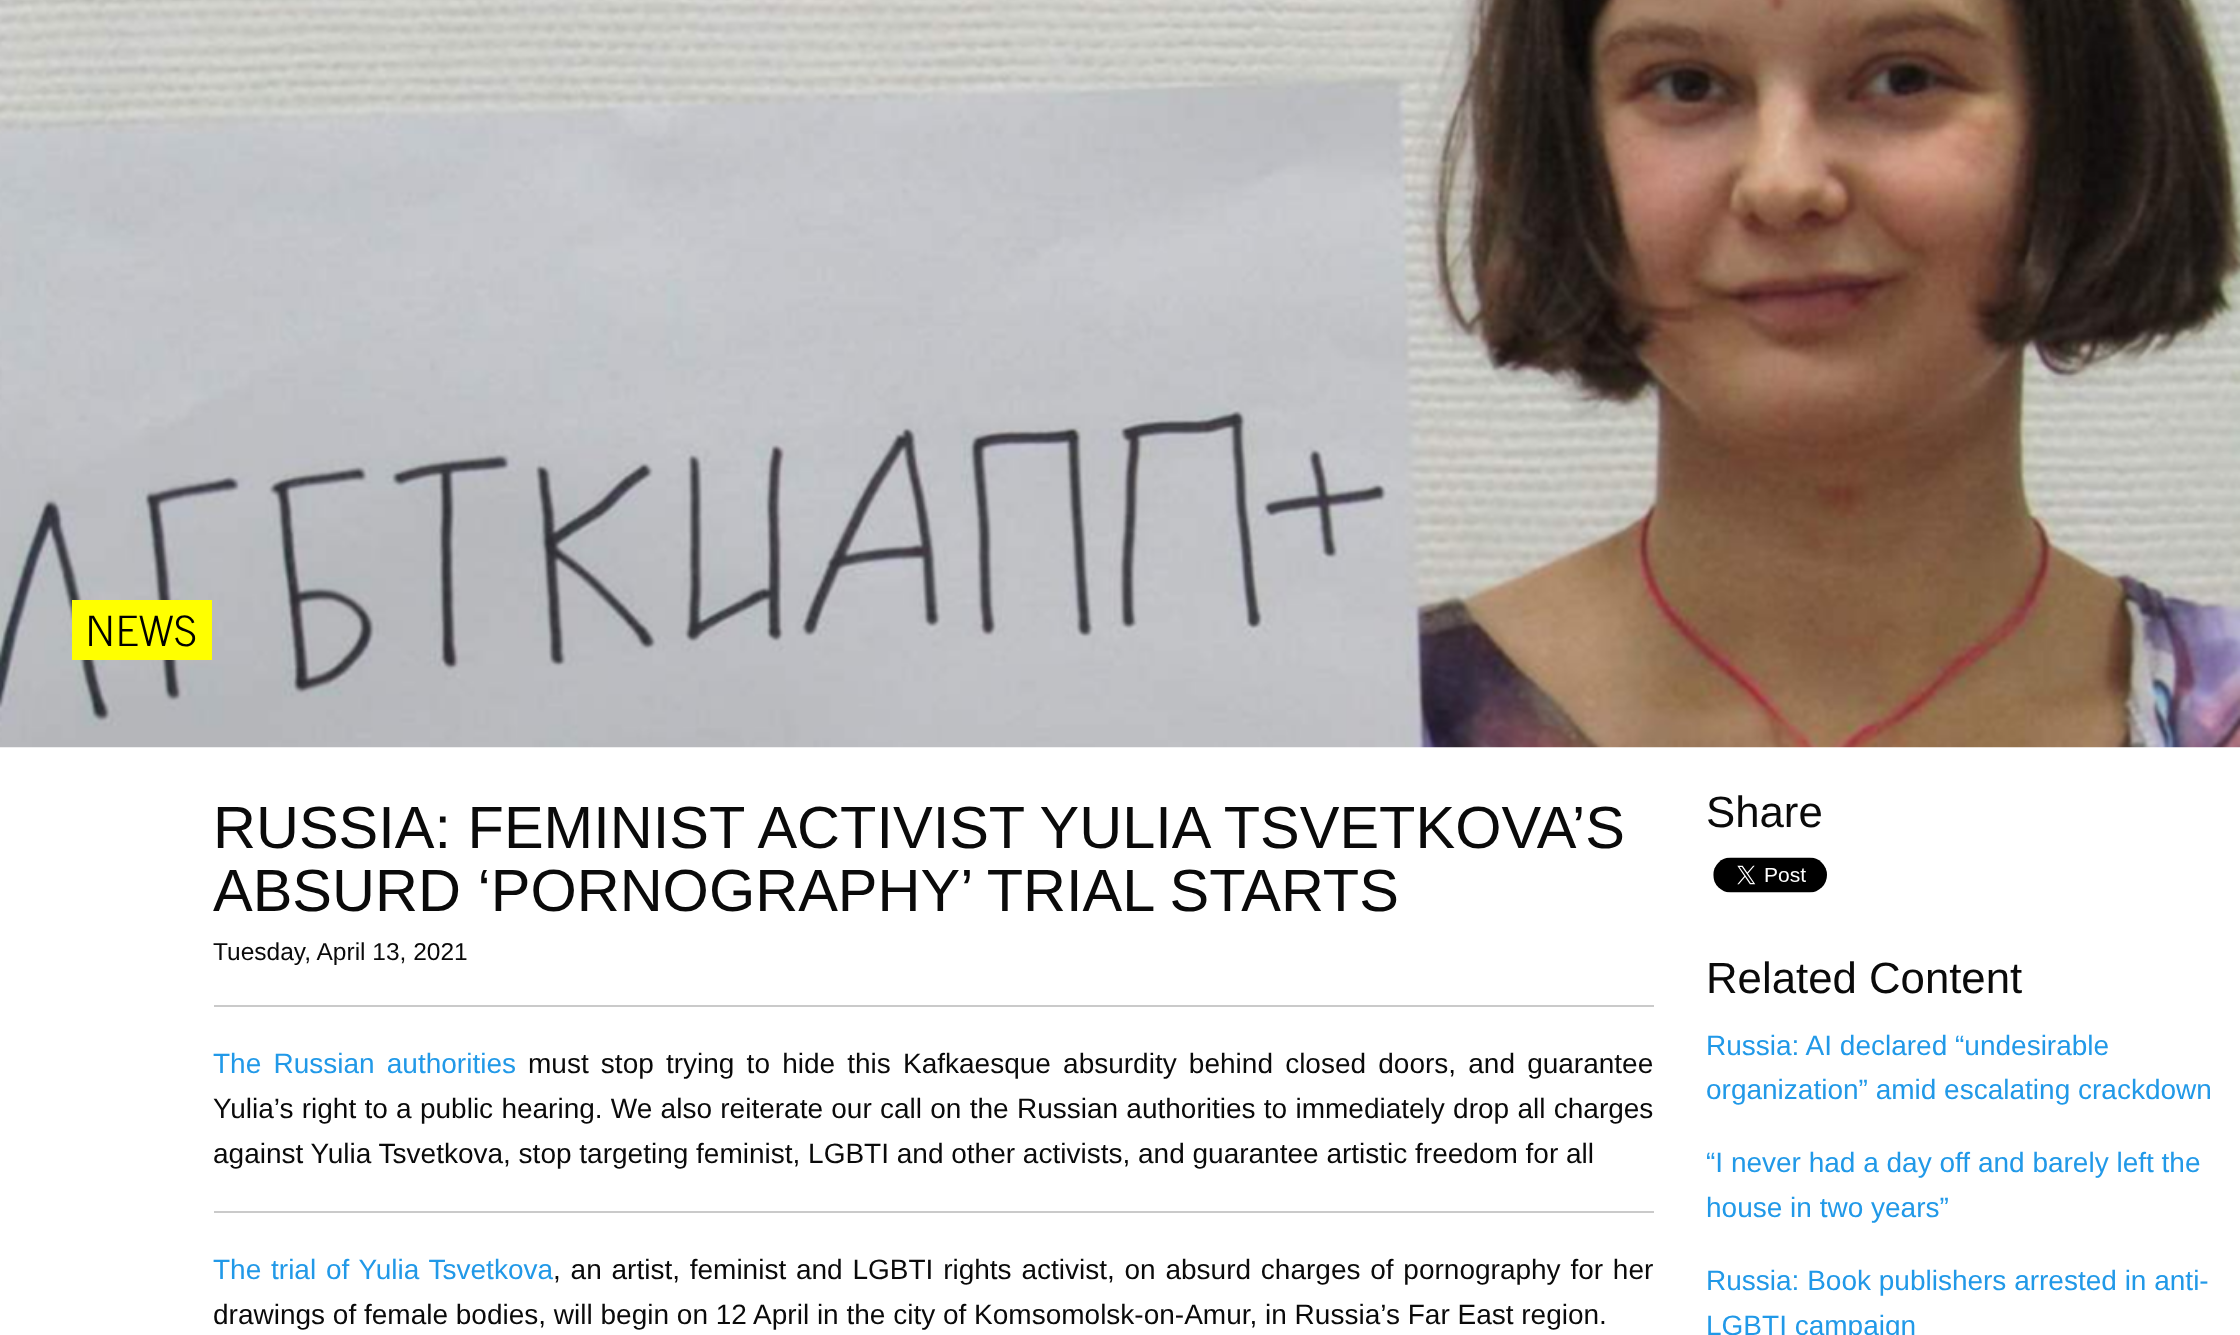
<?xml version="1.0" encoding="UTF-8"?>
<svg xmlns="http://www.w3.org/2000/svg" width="2240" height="1335">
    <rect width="100%" height="100%" fill="#FFFFFF"/>
    <image x="0" y="0" width="2240" height="748" href="img_01.png"/>
    <rect x="86" y="600" width="112" height="60" fill="#FFFF00"/>
    <text x="85" y="646" font-family="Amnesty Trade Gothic" font-size="42" font-weight="300" fill="#000000">NEWS</text>
    <path d="M 72 600 V 660 H 184 H 86 V 600 H 184 Z" fill="#FFFF00"/>
    <path d="M 100 600 H 198 V 660 H 100 H 212 V 600 Z" fill="#FFFF00"/>
    <text font-family="Liberation Sans" font-size="59.5" fill="#0A0A0A">
        <tspan x="213" y="848">RUSSIA: FEMINIST ACTIVIST YULIA TSVETKOVA’S</tspan>
        <tspan x="213" y="911">ABSURD ‘PORNOGRAPHY’ TRIAL STARTS</tspan>
    </text>
    <text x="213" y="960" font-family="Liberation Sans" font-size="24.5" fill="#0A0A0A">Tuesday, April 13, 2021</text>
    <rect x="214" y="1005" width="1440" height="2" fill="#CACACA"/>
    <text x="213" y="1073" word-spacing="4.4" font-family="Liberation Sans" font-size="28" fill="#2199E8">The Russian authorities</text>
    <text x="528" y="1073" word-spacing="4.4" font-family="Liberation Sans" font-size="28" fill="#0A0A0A">must stop trying to hide this Kafkaesque absurdity behind closed doors, and guarantee</text>
    <text font-family="Liberation Sans" font-size="28" fill="#0A0A0A">
        <tspan x="213" y="1118" word-spacing="0.5">Yulia’s right to a public hearing. We also reiterate our call on the Russian authorities to immediately drop all charges</tspan>
        <tspan x="213" y="1163">against Yulia Tsvetkova, stop targeting feminist, LGBTI and other activists, and guarantee artistic freedom for all</tspan>
    </text>
    <rect x="214" y="1211" width="1440" height="2" fill="#CACACA"/>
    <text x="213" y="1279" word-spacing="2" font-family="Liberation Sans" font-size="28" fill="#2199E8">The trial of Yulia Tsvetkova</text>
    <text x="553" y="1279" word-spacing="2" font-family="Liberation Sans" font-size="28" fill="#0A0A0A">, an artist, feminist and LGBTI rights activist, on absurd charges of pornography for her</text>
    <text x="213" y="1324" font-family="Liberation Sans" font-size="28" fill="#0A0A0A">drawings of female bodies, will begin on 12 April in the city of Komsomolsk-on-Amur, in Russia’s Far East region.</text>
    <text x="1706" y="827" font-family="Liberation Sans" font-size="43.75" fill="#0A0A0A">Share</text>
    <image x="1713" y="857" width="114" height="36" href="img_02.png"/>
    <text x="1706" y="993" font-family="Liberation Sans" font-size="43.75" fill="#0A0A0A">Related Content</text>
    <text font-family="Liberation Sans" font-size="28" fill="#2199E8">
        <tspan x="1706" y="1055">Russia: AI declared “undesirable</tspan>
        <tspan x="1706" y="1099">organization” amid escalating crackdown</tspan>
    </text>
    <text font-family="Liberation Sans" font-size="28" fill="#2199E8">
        <tspan x="1706" y="1172">“I never had a day off and barely left the</tspan>
        <tspan x="1706" y="1217">house in two years”</tspan>
    </text>
    <text font-family="Liberation Sans" font-size="28" fill="#2199E8">
        <tspan x="1706" y="1290">Russia: Book publishers arrested in anti-</tspan>
        <tspan x="1706" y="1335">LGBTI campaign</tspan>
    </text>
</svg>
